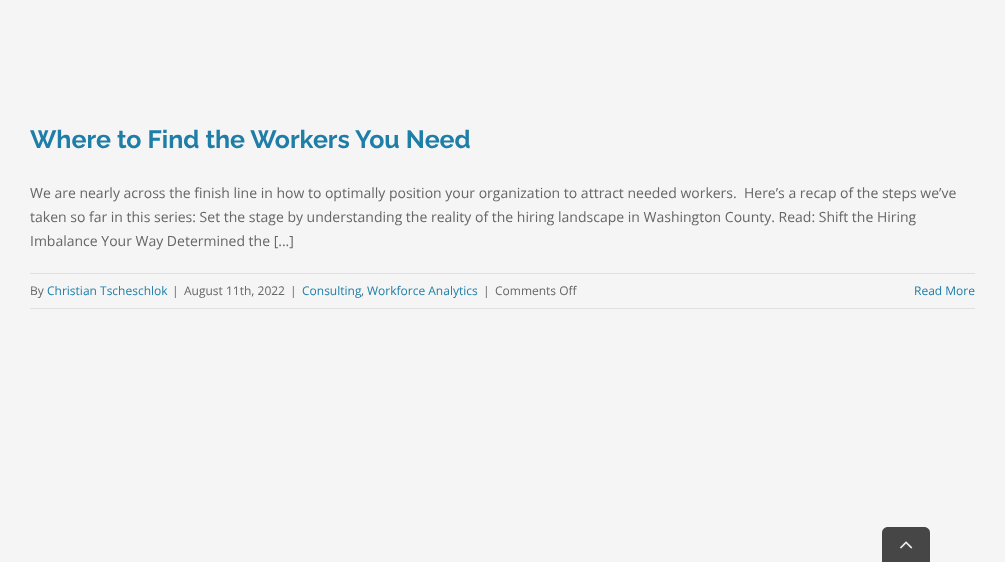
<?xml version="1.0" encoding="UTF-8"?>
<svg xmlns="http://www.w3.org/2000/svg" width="1005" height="562">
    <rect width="100%" height="100%" fill="#F5F5F5"/>
    <text x="30" y="148" font-family="Raleway" font-size="25" font-weight="700" fill="#1E7EA7">Where to Find the Workers You Need</text>
    <text font-family="Open Sans" font-size="14" fill="#666666" xml:space="preserve"><tspan x="30" y="198">We are nearly across the finish line in how to optimally position your organization to attract needed workers.  Here’s a recap of the steps we’ve</tspan><tspan x="30" y="222">taken so far in this series: Set the stage by understanding the reality of the hiring landscape in Washington County. Read: Shift the Hiring</tspan><tspan x="30" y="246">Imbalance Your Way Determined the [...]</tspan></text>
    <rect x="30" y="273" width="945" height="1" fill="#E0DEDE"/>
    <rect x="30" y="308" width="945" height="1" fill="#E0DEDE"/>
    <text x="30" y="295" font-family="Open Sans" font-size="12" fill="#666666">By</text>
    <text x="47" y="295" font-family="Open Sans" font-size="12" fill="#1E7EA7">Christian Tscheschlok</text>
    <text x="172" y="295" font-family="Open Sans" font-size="12" fill="#666666">|</text>
    <text x="184" y="295" font-family="Open Sans" font-size="12" fill="#666666">August 11th, 2022</text>
    <text x="290" y="295" font-family="Open Sans" font-size="12" fill="#666666">|</text>
    <text x="302" y="295" font-family="Open Sans" font-size="12" fill="#1E7EA7">Consulting</text>
    <text x="361" y="295" font-family="Open Sans" font-size="12" fill="#666666">,</text>
    <text x="367" y="295" font-family="Open Sans" font-size="12" fill="#1E7EA7">Workforce Analytics</text>
    <text x="483" y="295" font-family="Open Sans" font-size="12" fill="#666666">|</text>
    <text x="495" y="295" font-family="Open Sans" font-size="12" fill="#666666">Comments Off</text>
    <text x="914" y="295" font-family="Open Sans" font-size="12" fill="#1E7EA7">Read More</text>
    <path d="M 888 527 H 924 C 927.5 527 930 529.5 930 533 V 562 H 882 V 533 C 882 529.5 884.5 527 888 527 Z" fill="#464646"/>
    <image x="900" y="541" width="13" height="8" href="img_01.png"/>
</svg>
